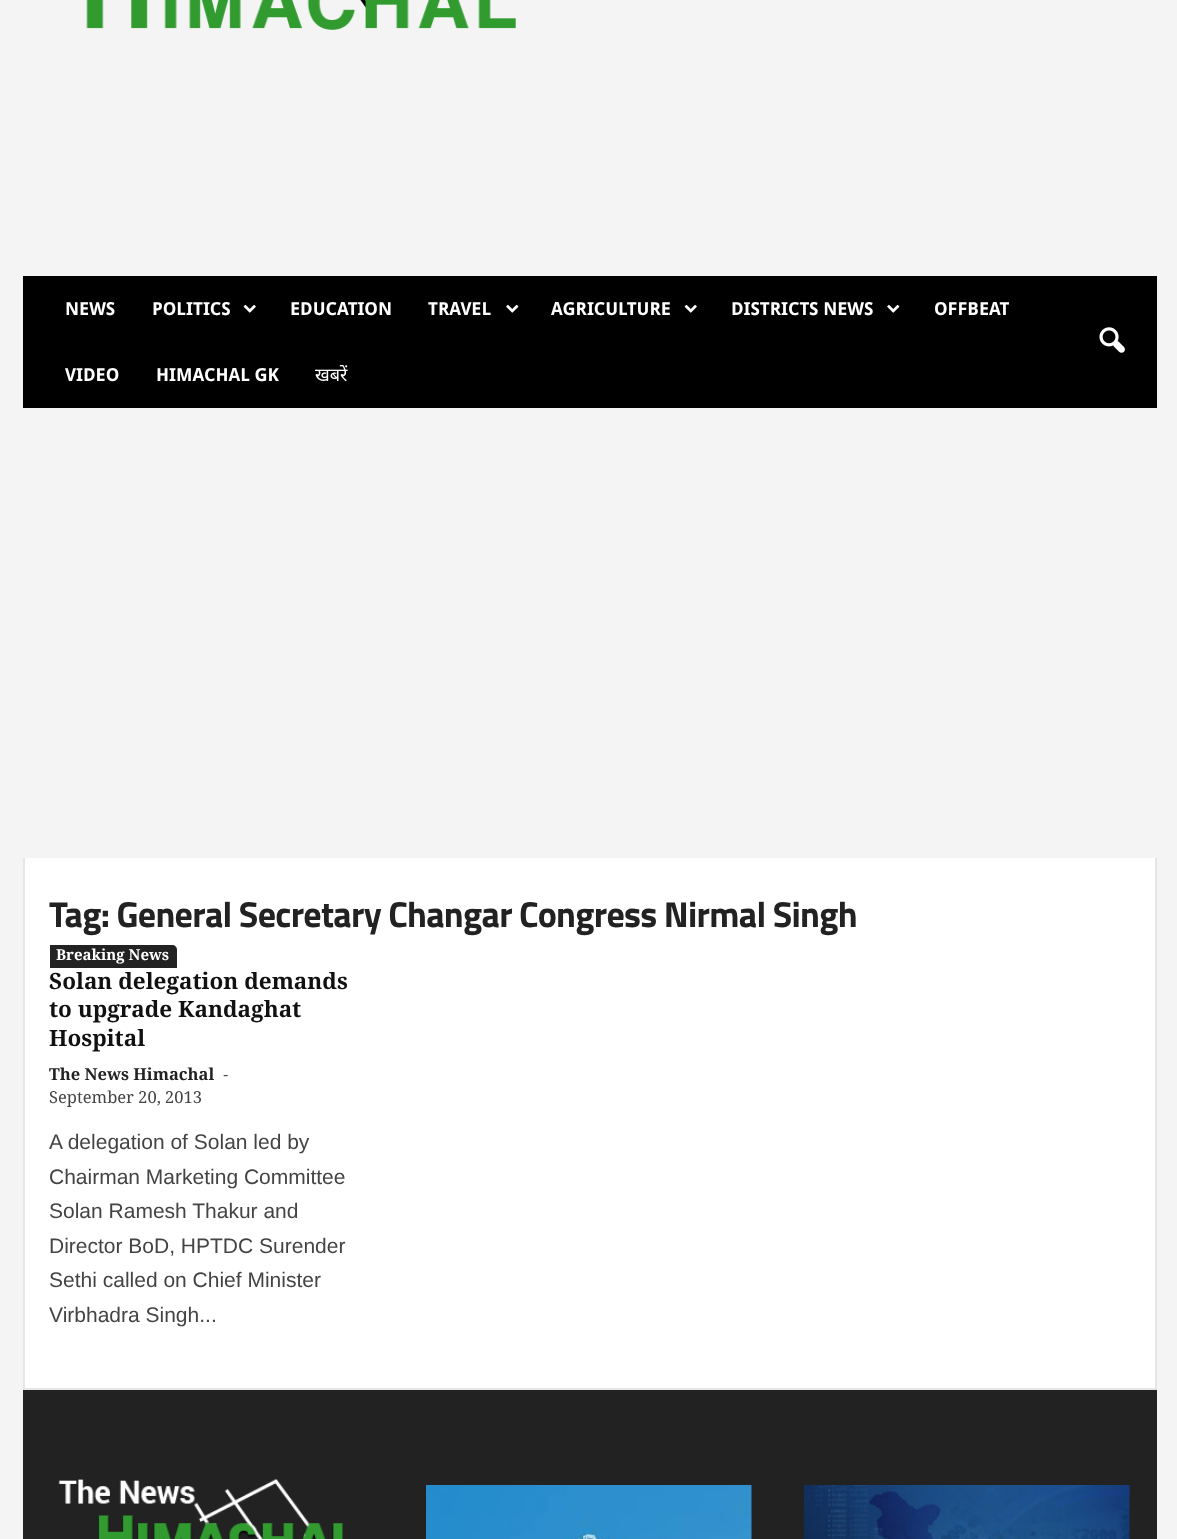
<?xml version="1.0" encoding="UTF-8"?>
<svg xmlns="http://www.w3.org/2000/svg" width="1177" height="1539">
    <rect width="100%" height="100%" fill="#F4F4F4"/>
    <image x="86" y="0" width="430" height="30" href="img_01.png"/>
    <rect x="23" y="276" width="1134" height="132" fill="#000000"/>
    <text x="65" y="315" font-family="Droid Sans" font-size="18" font-weight="700" fill="#FFFFFF">NEWS</text>
    <text x="152" y="315" font-family="Droid Sans" font-size="18" font-weight="700" fill="#FFFFFF">POLITICS</text>
    <image x="243" y="304" width="13" height="9" href="img_02.png"/>
    <text x="290" y="315" font-family="Droid Sans" font-size="18" font-weight="700" fill="#FFFFFF">EDUCATION</text>
    <text x="428" y="315" font-family="Droid Sans" font-size="18" font-weight="700" fill="#FFFFFF">TRAVEL</text>
    <image x="506" y="304" width="13" height="9" href="img_03.png"/>
    <text x="551" y="315" font-family="Droid Sans" font-size="18" font-weight="700" fill="#FFFFFF">AGRICULTURE</text>
    <image x="684" y="304" width="13" height="9" href="img_02.png"/>
    <text x="731" y="315" font-family="Droid Sans" font-size="18" font-weight="700" fill="#FFFFFF">DISTRICTS NEWS</text>
    <image x="887" y="304" width="13" height="9" href="img_03.png"/>
    <text x="934" y="315" font-family="Droid Sans" font-size="18" font-weight="700" fill="#FFFFFF">OFFBEAT</text>
    <text x="65" y="381" font-family="Droid Sans" font-size="18" font-weight="700" fill="#FFFFFF">VIDEO</text>
    <text x="156" y="381" font-family="Droid Sans" font-size="18" font-weight="700" fill="#FFFFFF">HIMACHAL GK</text>
    <text x="315" y="381" font-family="Noto Sans" font-size="18" fill="#FFFFFF">खबरें</text>
    <image x="1099" y="327" width="26" height="26" href="img_04.png"/>
    <rect x="25" y="858" width="1130" height="530" fill="#FFFFFF"/>
    <rect x="23" y="1388" width="1134" height="2" fill="#E6E6E6"/>
    <rect x="23" y="858" width="2" height="530" fill="#E6E6E6"/>
    <text x="49" y="927" font-family="Titillium Web" font-size="36" font-weight="700" letter-spacing="-0.72" fill="#222222">Tag: General Secretary Changar Congress Nirmal Singh</text>
    <path d="M 50 945 H 172 C 175 945 177 947 177 950 V 968 H 50 Z" fill="#222222"/>
    <text x="56" y="960" font-family="Droid Serif" font-size="15" font-weight="700" fill="#FFFFFF">Breaking News</text>
    <text font-family="Droid Serif" font-size="22.5" font-weight="700" fill="#111111">
        <tspan x="49" y="989">Solan delegation demands</tspan>
        <tspan x="49" y="1017">to upgrade Kandaghat</tspan>
        <tspan x="49" y="1046">Hospital</tspan>
    </text>
    <text x="49" y="1080" font-family="Droid Serif" font-size="16.5" font-weight="700" fill="#222222">The News Himachal</text>
    <text x="223" y="1080" font-family="Open Sans" font-size="16.5" fill="#444444">-</text>
    <text x="49" y="1103" font-family="Droid Serif" font-size="16.5" fill="#444444">September 20, 2013</text>
    <text font-family="Arimo" font-size="21" fill="#444444">
        <tspan x="49" y="1149">A delegation of Solan led by</tspan>
        <tspan x="49" y="1184">Chairman Marketing Committee</tspan>
        <tspan x="49" y="1218">Solan Ramesh Thakur and</tspan>
        <tspan x="49" y="1253">Director BoD, HPTDC Surender</tspan>
        <tspan x="49" y="1287">Sethi called on Chief Minister</tspan>
        <tspan x="49" y="1322">Virbhadra Singh...</tspan>
    </text>
    <rect x="1155" y="858" width="2" height="530" fill="#E6E6E6"/>
    <rect x="23" y="1390" width="1134" height="149" fill="#222222"/>
    <image x="58" y="1478" width="286" height="61" href="img_05.png"/>
    <image x="426" y="1485" width="326" height="54" href="img_06.png"/>
    <image x="804" y="1485" width="326" height="54" href="img_07.png"/>
</svg>
